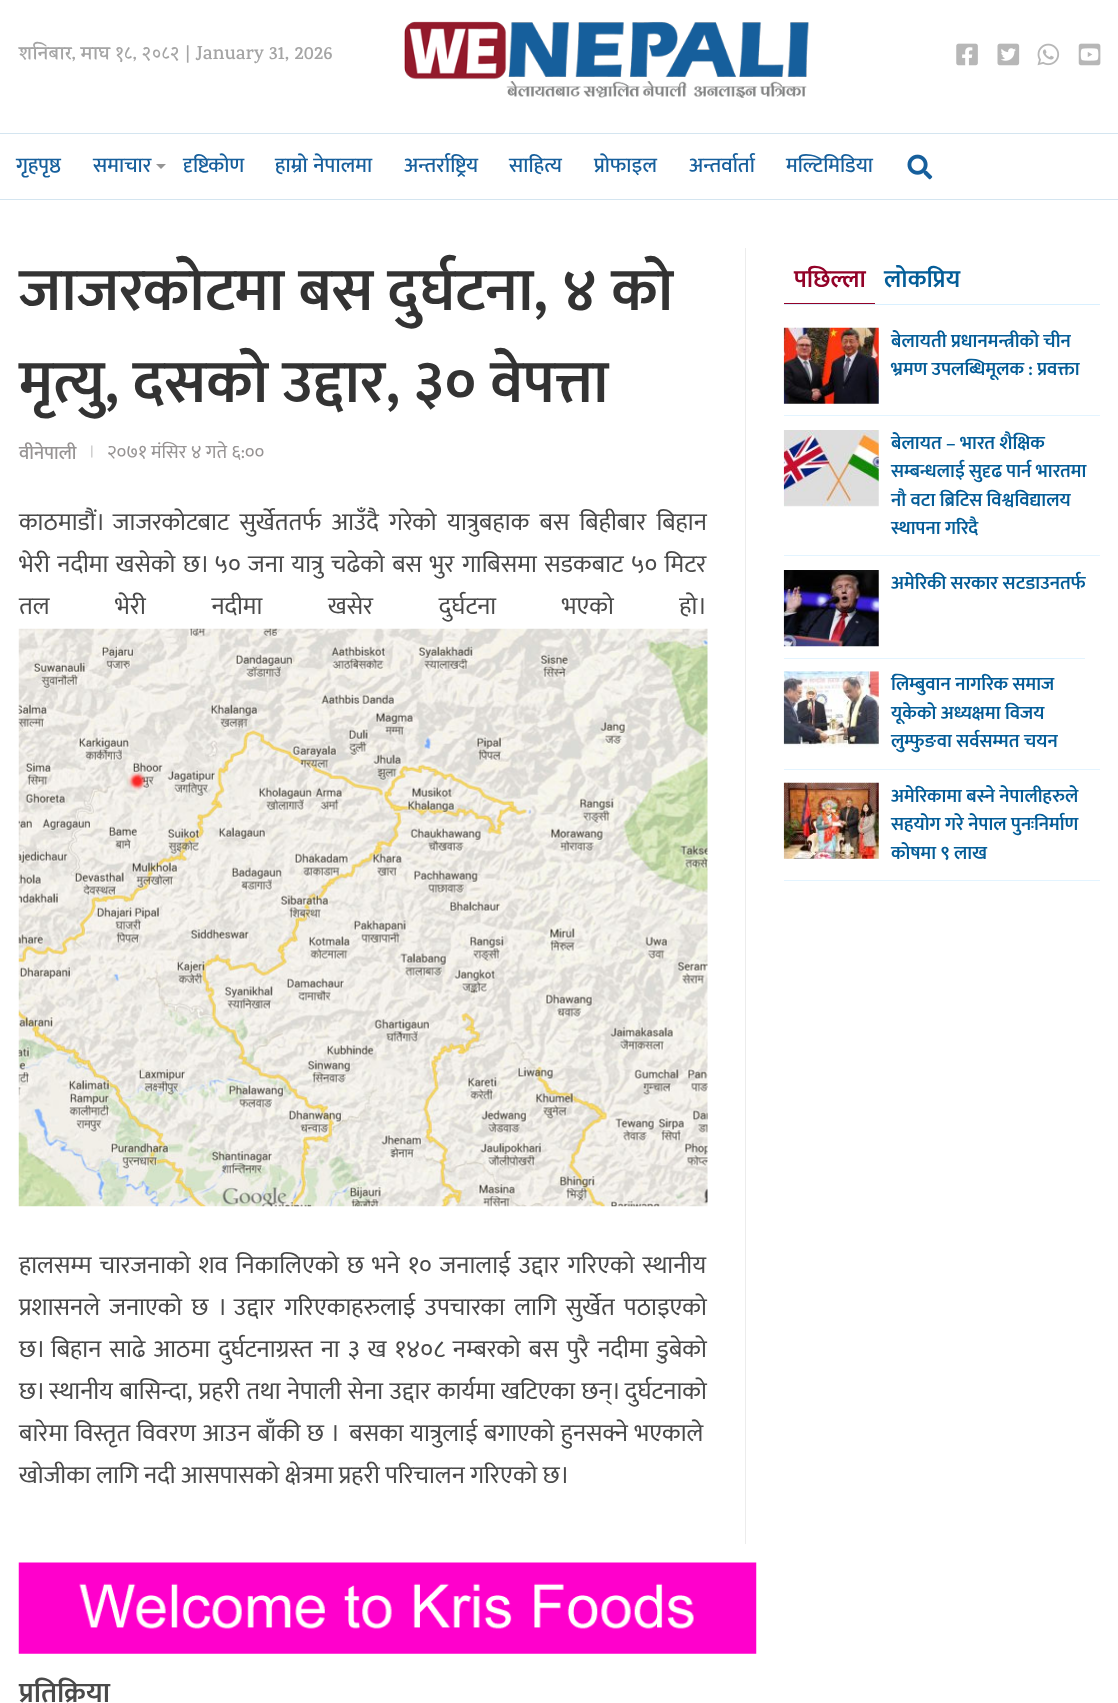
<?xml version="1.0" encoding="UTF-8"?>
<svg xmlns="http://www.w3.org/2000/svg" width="1118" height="1703">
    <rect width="100%" height="100%" fill="#FFFFFF"/>
    <text x="19" y="59" font-family="Karma" font-size="19" font-weight="600" fill="#A5A5A5">शनिबार, माघ १८, २०८२ | January 31, 2026</text>
    <image x="404" y="21" width="405" height="77" href="img_01.png"/>
    <image x="956" y="43" width="22" height="23" href="img_02.png"/>
    <image x="997" y="43" width="23" height="23" href="img_03.png"/>
    <image x="1037" y="43" width="23" height="23" href="img_04.png"/>
    <image x="1078" y="43" width="23" height="23" href="img_05.png"/>
    <rect x="0" y="133" width="1118" height="1" fill="#D4E5F0"/>
    <rect x="0" y="199" width="1118" height="1" fill="#D4E5F0"/>
    <text x="16" y="172" font-family="Mukta" font-size="21" font-weight="500" fill="#165F9C">गृहपृष्ठ</text>
    <text x="93" y="172" font-family="Mukta" font-size="21" font-weight="500" fill="#165F9C">समाचार</text>
    <path d="M 156 164 H 166 L 161 169 Z" fill="#959595"/>
    <text x="183" y="172" font-family="Mukta" font-size="21" font-weight="500" fill="#165F9C">दृष्टिकोण</text>
    <text x="275" y="172" word-spacing="1" font-family="Mukta" font-size="21" font-weight="500" fill="#165F9C">हाम्रो नेपालमा</text>
    <text x="404" y="172" font-family="Mukta" font-size="21" font-weight="500" fill="#165F9C">अन्तर्राष्ट्रिय</text>
    <text x="509" y="172" font-family="Mukta" font-size="21" font-weight="500" fill="#165F9C">साहित्य</text>
    <text x="594" y="172" font-family="Mukta" font-size="21" font-weight="500" fill="#165F9C">प्रोफाइल</text>
    <text x="689" y="172" font-family="Mukta" font-size="21" font-weight="500" fill="#165F9C">अन्तर्वार्ता</text>
    <text x="786" y="172" font-family="Mukta" font-size="21" font-weight="500" fill="#165F9C">मल्टिमिडिया</text>
    <image x="907" y="154" width="26" height="26" href="img_06.png"/>
    <rect x="745" y="248" width="1" height="1296" fill="#ECECEC"/>
    <text font-family="Mukta" font-size="60.75" font-weight="600" fill="#333333">
        <tspan x="19" y="310">जाजरकोटमा बस दुर्घटना, ४ को</tspan>
        <tspan x="19" y="402">मृत्यु, दसको उद्दार, ३० वेपत्ता</tspan>
    </text>
    <text x="19" y="459" font-family="Mukta" font-size="19" font-weight="500" fill="#979494">वीनेपाली</text>
    <text x="90" y="455" font-family="Karma" font-size="13" font-weight="600" fill="#BFBFBF">|</text>
    <text x="107" y="458" font-family="Mukta" font-size="19" fill="#979494">२०७१ मंसिर ४ गते ६:००</text>
    <text font-family="Mukta" font-size="24.7" fill="#4A4A4A">
        <tspan x="19" y="530" word-spacing="4.75">काठमाडौं। जाजरकोटबाट सुर्खेततर्फ आउँदै गरेको यात्रुबहाक बस बिहीबार बिहान</tspan>
        <tspan x="19" y="572" word-spacing="2">भेरी नदीमा खसेको छ। ५० जना यात्रु चढेको बस भुर गाबिसमा सडकबाट ५० मिटर</tspan>
        <tspan x="19" y="614" word-spacing="60">तल भेरी नदीमा खसेर दुर्घटना भएको हो।</tspan>
    </text>
    <image x="18" y="628" width="690" height="579" href="img_07.png"/>
    <text font-family="Mukta" font-size="24.7" fill="#4A4A4A" xml:space="preserve"><tspan x="19" y="1273" word-spacing="2.4">हालसम्म चारजनाको शव निकालिएको छ भने १० जनालाई उद्दार गरिएको स्थानीय</tspan><tspan x="19" y="1315" word-spacing="3.75">प्रशासनले जनाएको छ । उद्दार गरिएकाहरुलाई उपचारका लागि सुर्खेत पठाइएको</tspan><tspan x="19" y="1357" word-spacing="2.6">छ। बिहान साढे आठमा दुर्घटनाग्रस्त ना ३ ख १४०८ नम्बरको बस पुरै नदीमा डुबेको</tspan><tspan x="19" y="1399" word-spacing="0.9">छ। स्थानीय बासिन्दा, प्रहरी तथा नेपाली सेना उद्दार कार्यमा खटिएका छन्। दुर्घटनाको</tspan><tspan x="19" y="1441" word-spacing="0.9">बारेमा विस्तृत विवरण आउन बाँकी छ ।  बसका यात्रुलाई बगाएको हुनसक्ने भएकाले</tspan><tspan x="19" y="1483">खोजीका लागि नदी आसपासको क्षेत्रमा प्रहरी परिचालन गरिएको छ।</tspan></text>
    <image x="18" y="1562" width="739" height="92" href="img_08.png"/>
    <text x="19" y="1702" font-family="Mukta" font-size="28.5" font-weight="600" fill="#4A4A4A">प्रतिक्रिया</text>
    <rect x="784" y="304" width="316" height="1" fill="#D9F0FF"/>
    <rect x="784" y="303" width="91" height="1" fill="#930228"/>
    <text x="794" y="287" font-family="Mukta" font-size="24.7" font-weight="600" fill="#930228">पछिल्ला</text>
    <text x="884" y="287" font-family="Mukta" font-size="24.7" font-weight="600" fill="#045D98">लोकप्रिय</text>
    <rect x="784" y="415" width="316" height="1" fill="#E3F4FF"/>
    <image x="783" y="327" width="96" height="77" href="img_09.png"/>
    <text font-family="Mukta" font-size="19" font-weight="600" fill="#045D98">
        <tspan x="891" y="347">बेलायती प्रधानमन्त्रीको चीन</tspan>
        <tspan x="891" y="375">भ्रमण उपलब्धिमूलक : प्रवक्ता</tspan>
    </text>
    <rect x="784" y="555" width="316" height="1" fill="#E3F4FF"/>
    <image x="783" y="430" width="96" height="77" href="img_10.png"/>
    <text font-family="Mukta" font-size="19" font-weight="600" fill="#045D98">
        <tspan x="891" y="449">बेलायत – भारत शैक्षिक</tspan>
        <tspan x="891" y="477">सम्बन्धलाई सुदृढ पार्न भारतमा</tspan>
        <tspan x="891" y="506">नौ वटा ब्रिटिस विश्वविद्यालय</tspan>
        <tspan x="891" y="534">स्थापना गरिदै</tspan>
    </text>
    <rect x="784" y="658" width="301" height="1" fill="#E3F4FF"/>
    <image x="783" y="570" width="96" height="77" href="img_11.png"/>
    <text x="891" y="589" font-family="Mukta" font-size="19" font-weight="600" fill="#045D98">अमेरिकी सरकार सटडाउनतर्फ</text>
    <rect x="784" y="769" width="316" height="1" fill="#E3F4FF"/>
    <image x="783" y="671" width="96" height="77" href="img_12.png"/>
    <text font-family="Mukta" font-size="19" font-weight="600" fill="#045D98">
        <tspan x="891" y="690">लिम्बुवान नागरिक समाज</tspan>
        <tspan x="891" y="719">यूकेको अध्यक्षमा विजय</tspan>
        <tspan x="891" y="747">लुम्फुङवा सर्वसम्मत चयन</tspan>
    </text>
    <rect x="784" y="880" width="316" height="1" fill="#E3F4FF"/>
    <image x="783" y="782" width="96" height="77" href="img_13.png"/>
    <text font-family="Mukta" font-size="19" font-weight="600" fill="#045D98">
        <tspan x="891" y="802">अमेरिकामा बस्ने नेपालीहरुले</tspan>
        <tspan x="891" y="830">सहयोग गरे नेपाल पुनःनिर्माण</tspan>
        <tspan x="891" y="859">कोषमा ९ लाख</tspan>
    </text>
</svg>
